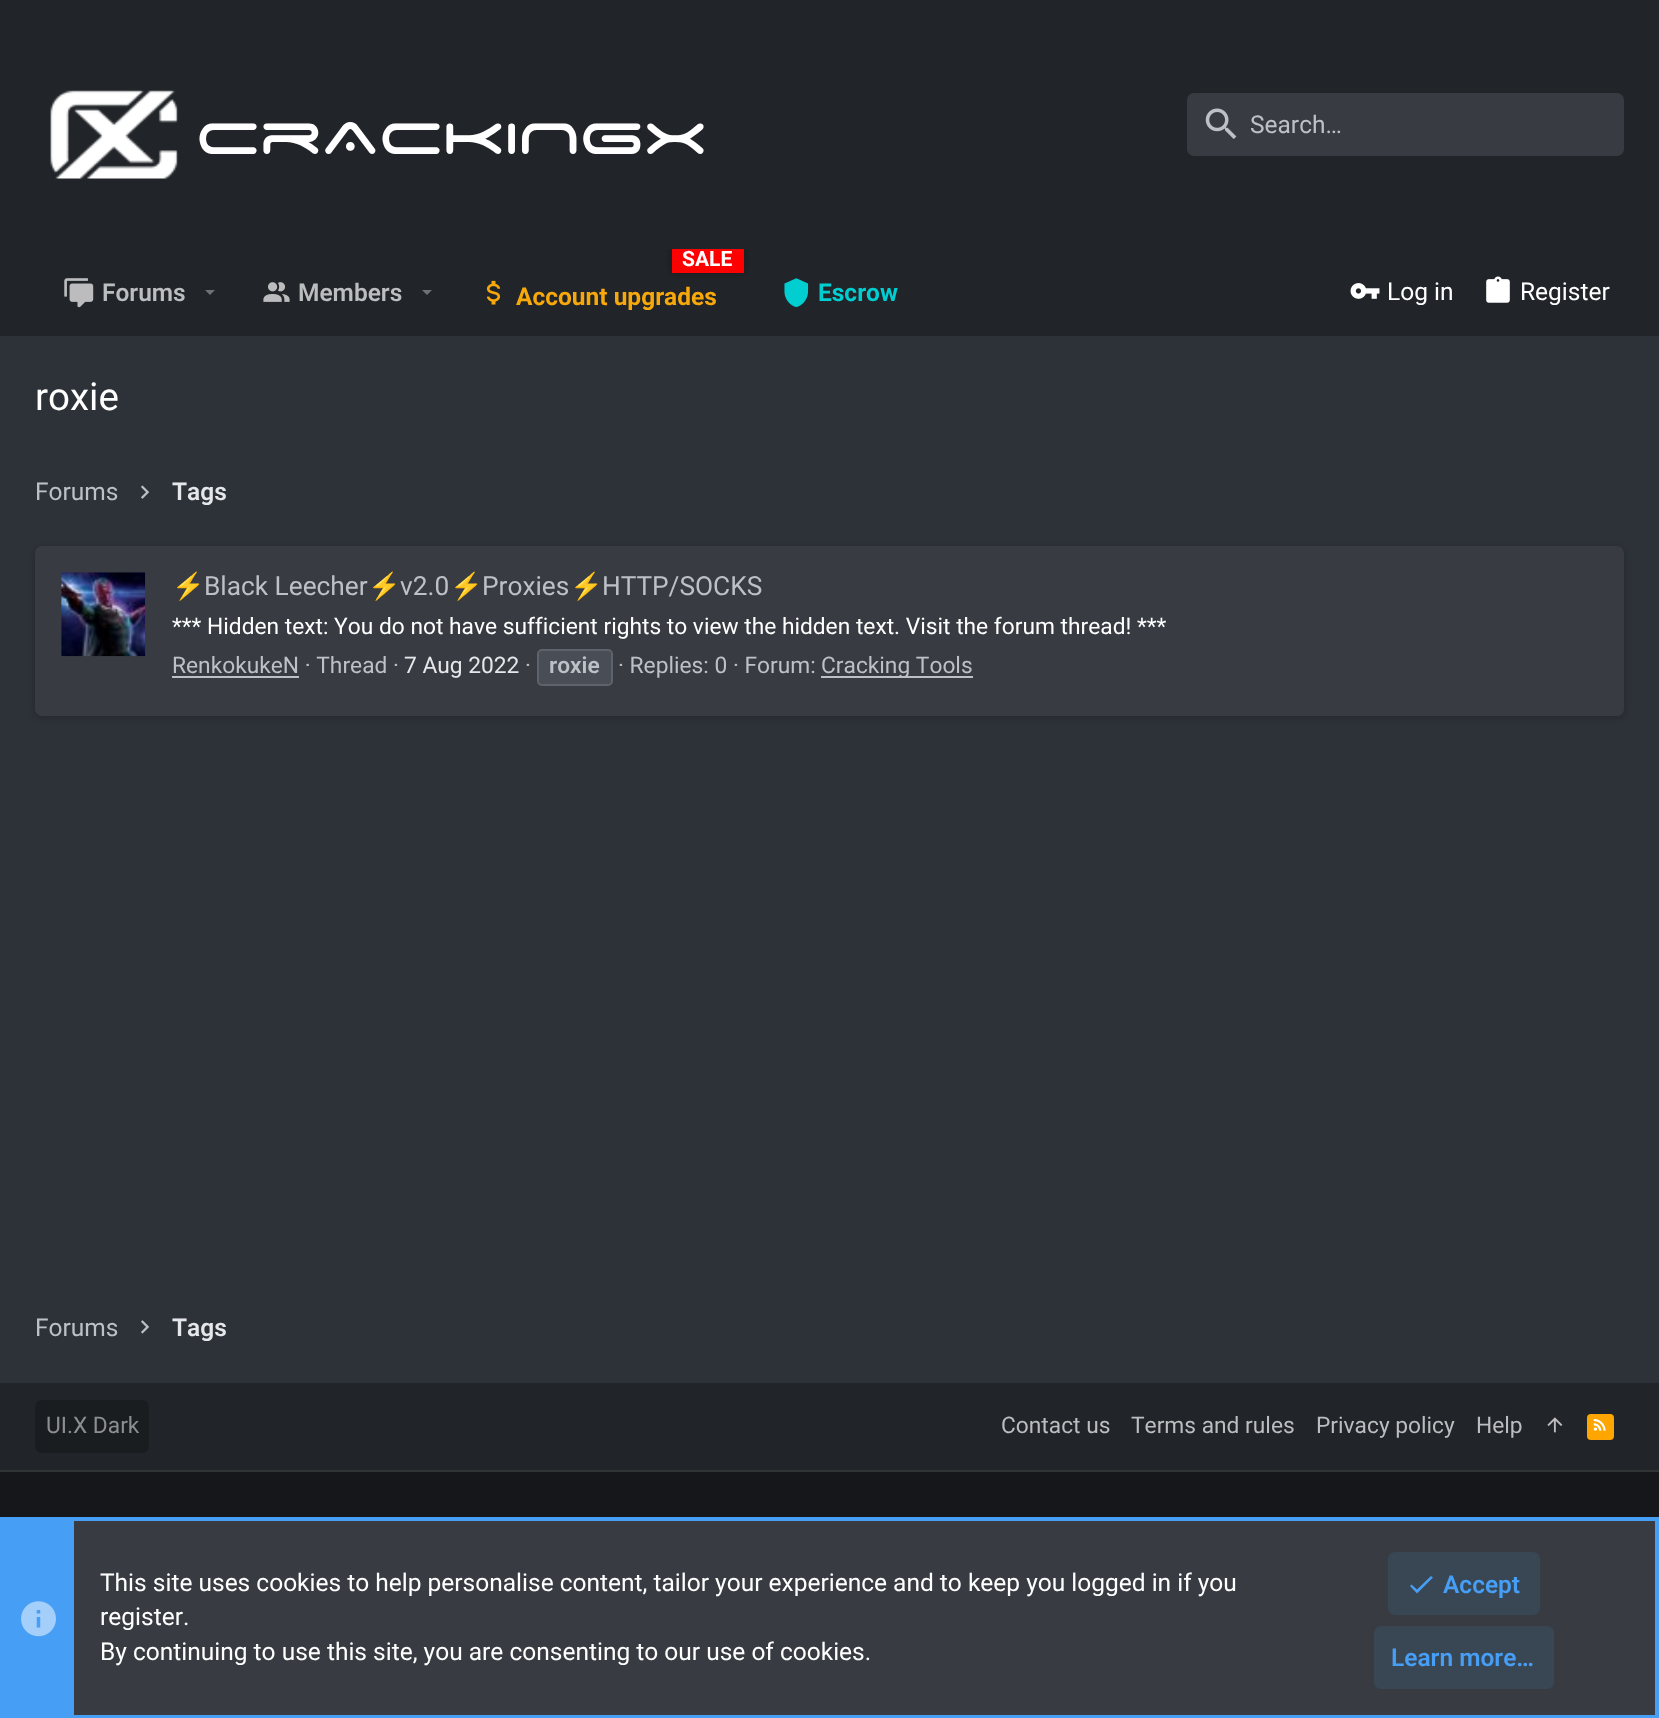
<?xml version="1.0" encoding="UTF-8"?>
<svg xmlns="http://www.w3.org/2000/svg" width="1659" height="1718">
    <style>*{font-kerning:none!important;font-variant-ligatures:none!important}</style>
    <defs>
        <clipPath id="clip1"><rect x="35" y="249" width="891" height="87"/></clipPath>
        <filter id="blur1" x="-50%" y="-200%" width="200%" height="500%"><feGaussianBlur stdDeviation="4.5"/></filter>
    </defs>
    <rect width="100%" height="100%" fill="#2D3238"/>
    <rect x="0" y="0" width="1659" height="336" fill="#212428"/>
    <image x="50" y="90" width="128" height="89" href="img_01.png"/>
    <text x="196" y="159" font-family="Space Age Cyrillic" font-size="70" fill="#FFFFFF">CrACKINGx</text>
    <rect x="1187" y="93" width="437" height="63" rx="7" fill="#383C42"/>
    <image x="1205" y="108" width="32" height="31" href="img_02.png"/>
    <text x="1250" y="133" font-family="Roboto" font-size="24.5" fill="#BCC0C7">Search…</text>
    <image x="64" y="278" width="30" height="30" href="img_03.png"/>
    <text x="102" y="301" font-family="Roboto" font-size="24.5" font-weight="600" fill="#BCBDBF">Forums</text>
    <path d="M 205 290 L 210 295 L 215 290 Z" fill="#6F7174"/>
    <image x="263" y="282" width="27" height="20" href="img_04.png"/>
    <text x="298" y="301" font-family="Roboto" font-size="24.5" font-weight="600" fill="#BCBDBF">Members</text>
    <path d="M 422 290 L 427 295 L 432 290 Z" fill="#6F7174"/>
    <g clip-path="url(#clip1)">
        <rect x="672" y="245" width="72" height="28" fill="#000000" fill-opacity="0.3" filter="url(#blur1)"/>
    </g>
    <rect x="672" y="249" width="72" height="24" fill="#FF0000"/>
    <text x="682" y="266" font-family="Roboto" font-size="21" font-weight="700" fill="#FFFFFF">SALE</text>
    <image x="486" y="280" width="15" height="25" href="img_05.png"/>
    <text x="516" y="305" font-family="Roboto" font-size="24.5" font-weight="700" fill="#F7A80B">Account upgrades</text>
    <image x="784" y="278" width="25" height="30" href="img_06.png"/>
    <text x="818" y="301" font-family="Roboto" font-size="24.5" font-weight="700" fill="#00CED1">Escrow</text>
    <image x="1350" y="283" width="30" height="16" href="img_07.png"/>
    <text x="1387" y="300" font-family="Roboto" font-size="24.5" fill="#FFFFFF">Log in</text>
    <image x="1486" y="276" width="24" height="27" href="img_08.png"/>
    <text x="1520" y="300" font-family="Roboto" font-size="24.5" fill="#FFFFFF">Register</text>
    <text x="35" y="410" font-family="Roboto" font-size="38.5" fill="#FFFFFF">roxie</text>
    <text x="35" y="500" font-family="Roboto" font-size="24.5" fill="#BCC0C7">Forums</text>
    <image x="141" y="485" width="9" height="14" href="img_09.png"/>
    <text x="172" y="500" font-family="Roboto" font-size="24.5" font-weight="600" fill="#E6E7EA">Tags</text>
    <rect x="35" y="548" width="1589" height="170" rx="7" fill="#000000" fill-opacity="0.2" filter="url(#blur1)"/>
    <rect x="35" y="546" width="1589" height="170" rx="7" fill="#383C42"/>
    <image x="61" y="572" width="85" height="85" href="img_10.png"/>
    <text x="172" y="595" font-family="Noto Color Emoji" font-size="26.25" fill="#BCC0C7">⚡</text>
    <text x="204" y="595" font-family="Roboto" font-size="26.25" fill="#BCC0C7">Black Leecher</text>
    <text x="368" y="595" font-family="Noto Color Emoji" font-size="26.25" fill="#BCC0C7">⚡</text>
    <text x="400" y="595" font-family="Roboto" font-size="26.25" fill="#BCC0C7">v2.0</text>
    <text x="450" y="595" font-family="Noto Color Emoji" font-size="26.25" fill="#BCC0C7">⚡</text>
    <text x="482" y="595" font-family="Roboto" font-size="26.25" fill="#BCC0C7">Proxies</text>
    <text x="570" y="595" font-family="Noto Color Emoji" font-size="26.25" fill="#BCC0C7">⚡</text>
    <text x="602" y="595" font-family="Roboto" font-size="26.25" fill="#BCC0C7">HTTP/SOCKS</text>
    <text x="172" y="634" font-family="Roboto" font-size="22.75" fill="#FFFFFF">*** Hidden text: You do not have sufficient rights to view the hidden text. Visit the forum thread! ***</text>
    <text x="172" y="673" font-family="Roboto" font-size="22.75" fill="#BCC0C7">RenkokukeN · Thread ·</text>
    <rect x="172" y="676" width="127" height="2" fill="#BCC0C7"/>
    <text x="404" y="673" font-family="Roboto" font-size="22.75" fill="#E6E7EA">7 Aug 2022</text>
    <text x="525" y="673" font-family="Roboto" font-size="22.75" fill="#BCC0C7">·</text>
    <rect x="537" y="649" width="76" height="37" rx="5" fill="#484D56"/>
    <rect x="538" y="650" width="74" height="35" rx="4" fill="none" stroke="#FFFFFF" stroke-opacity="0.12" stroke-width="2"/>
    <text x="549" y="673" font-family="Roboto" font-size="22.75" font-weight="600" fill="#BCC0C7">roxie</text>
    <text x="618" y="673" font-family="Roboto" font-size="22.75" fill="#BCC0C7">· Replies: 0 · Forum:</text>
    <rect x="821" y="676" width="152" height="2" fill="#BCC0C7"/>
    <text x="821" y="673" font-family="Roboto" font-size="22.75" fill="#BCC0C7">Cracking Tools</text>
    <text x="35" y="1336" font-family="Roboto" font-size="24.5" fill="#BCC0C7">Forums</text>
    <image x="141" y="1320" width="9" height="14" href="img_11.png"/>
    <text x="172" y="1336" font-family="Roboto" font-size="24.5" font-weight="600" fill="#E6E7EA">Tags</text>
    <rect x="0" y="1383" width="1659" height="87" fill="#212428"/>
    <rect x="35" y="1400" width="114" height="53" rx="7" fill="#1A1D20"/>
    <text x="46" y="1433" font-family="Roboto" font-size="22.75" fill="#8D8E90">UI.X Dark</text>
    <text x="1001" y="1433" font-family="Roboto" font-size="22.75" fill="#BCBDBF">Contact us</text>
    <text x="1131" y="1433" font-family="Roboto" font-size="22.75" fill="#BCBDBF">Terms and rules</text>
    <text x="1316" y="1433" font-family="Roboto" font-size="22.75" fill="#BCBDBF">Privacy policy</text>
    <text x="1476" y="1433" font-family="Roboto" font-size="22.75" fill="#BCBDBF">Help</text>
    <image x="1547" y="1417" width="16" height="16" href="img_12.png"/>
    <rect x="1587" y="1414" width="27" height="26" rx="4" fill="#FFA500"/>
    <image x="1593" y="1419" width="13" height="12" href="img_13.png"/>
    <rect x="0" y="1472" width="1659" height="45" fill="#15171A"/>
    <rect x="0" y="1470" width="1659" height="2" fill="#313335"/>
    <rect x="74" y="1521" width="1581" height="194" fill="#383C42"/>
    <rect x="2" y="1519" width="1655" height="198" fill="none" stroke="#469EF5" stroke-width="4"/>
    <rect x="4" y="1521" width="70" height="194" fill="#469EF5"/>
    <image x="21" y="1601" width="35" height="36" href="img_14.png"/>
    <text font-family="Roboto" font-size="24.5" fill="#FFFFFF">
        <tspan x="100" y="1591">This site uses cookies to help personalise content, tailor your experience and to keep you logged in if you</tspan>
        <tspan x="100" y="1625">register.</tspan>
        <tspan x="100" y="1660">By continuing to use this site, you are consenting to our use of cookies.</tspan>
    </text>
    <rect x="1388" y="1552" width="152" height="63" rx="7" fill="#394654"/>
    <path d="M 1433 1577.5 L 1417 1593.5 L 1410 1586 L 1411.5 1584.5 L 1417 1589.5 L 1431 1576 Z" fill="#469EF5"/>
    <text x="1443" y="1593" font-family="Roboto" font-size="24.5" font-weight="600" fill="#469EF5">Accept</text>
    <rect x="1374" y="1626" width="180" height="63" rx="7" fill="#394654"/>
    <text x="1391" y="1666" font-family="Roboto" font-size="24.5" font-weight="600" fill="#469EF5">Learn more…</text>
</svg>
